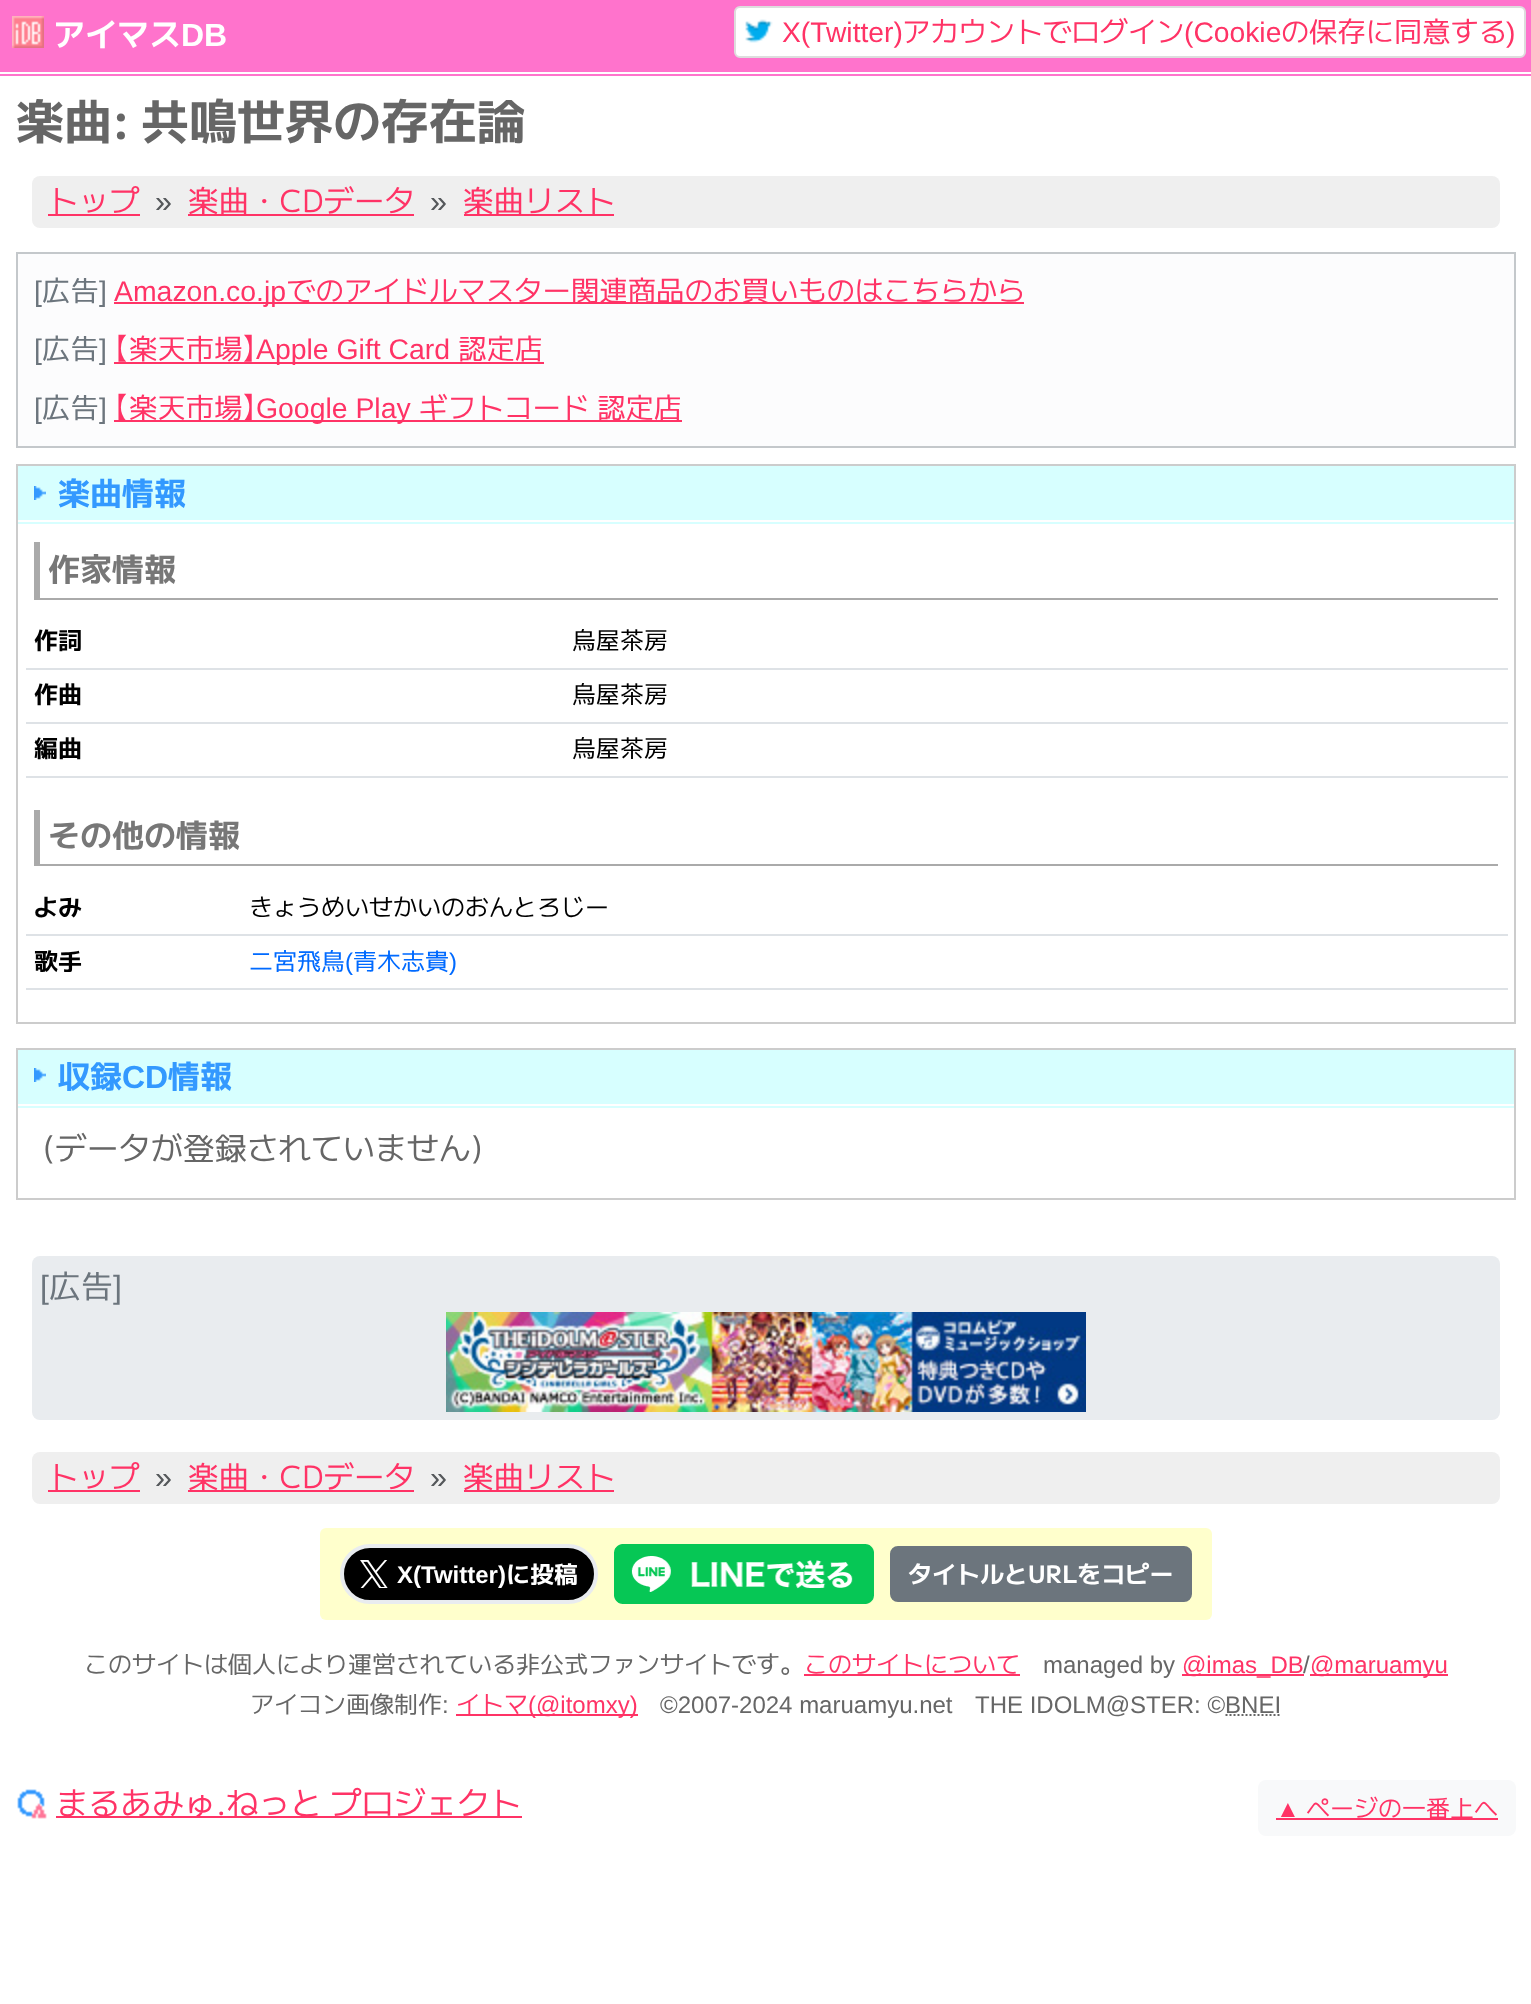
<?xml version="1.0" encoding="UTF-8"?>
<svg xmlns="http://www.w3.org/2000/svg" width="1531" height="2004">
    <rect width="100%" height="100%" fill="#FFFFFF"/>
    <rect x="0" y="0" width="1531" height="76" fill="#FF73CC"/>
    <rect x="0" y="72" width="1531" height="2" fill="#FFFFFF"/>
    <image x="12" y="16" width="32" height="32" href="img_01.png"/>
    <text x="53" y="46" font-family="'M PLUS 2'" font-size="32" font-weight="700" fill="#FFFFFF">アイマス</text>
    <text x="181" y="46" font-family="Liberation Sans" font-size="32" font-weight="700" fill="#FFFFFF">DB</text>
    <rect x="735" y="7" width="790" height="50" rx="5" fill="#FFFFFF" stroke="#DDDDDD" stroke-width="2"/>
    <image x="745" y="19" width="28" height="24" href="img_02.png"/>
    <text x="782" y="42" font-family="Liberation Sans" font-size="28.25" fill="#FF3366">X(Twitter)</text>
    <text x="902" y="42" font-family="'M PLUS 2'" font-size="28.25" fill="#FF3366">アカウントでログイン</text>
    <text x="1184" y="42" font-family="Liberation Sans" font-size="28.25" fill="#FF3366">(Cookie</text>
    <text x="1281" y="42" font-family="'M PLUS 2'" font-size="28.25" fill="#FF3366">の保存に同意する</text>
    <text x="1506" y="42" font-family="Liberation Sans" font-size="28.25" fill="#FF3366">)</text>
    <text x="16" y="139" word-spacing="-2" font-family="'M PLUS 2'" font-size="48" font-weight="700" fill="#666666">楽曲: 共鳴世界の存在論</text>
    <rect x="32" y="176" width="1468" height="52" rx="8" fill="#EFEFEF"/>
    <text x="48" y="212" font-family="'M PLUS 2'" font-size="30.5" fill="#FF3366">トップ</text>
    <rect x="48" y="214" width="92" height="2" fill="#FF3366"/>
    <text x="155" y="212" font-family="Liberation Sans" font-size="30.5" fill="#55585B">»</text>
    <rect x="188" y="214" width="226" height="2" fill="#FF3366"/>
    <text x="188" y="212" font-family="'M PLUS 2'" font-size="30.5" fill="#FF3366">楽曲・CDデータ</text>
    <text x="430" y="212" font-family="Liberation Sans" font-size="30.5" fill="#55585B">»</text>
    <rect x="464" y="214" width="150" height="2" fill="#FF3366"/>
    <text x="463" y="212" font-family="'M PLUS 2'" font-size="30.5" fill="#FF3366">楽曲リスト</text>
    <rect x="17" y="253" width="1498" height="194" fill="#FCFCFD" stroke="#C4C8CB" stroke-width="2"/>
    <text x="34" y="301" font-family="Liberation Sans" font-size="28.4" fill="#6C757D">[</text>
    <text x="42" y="301" font-family="'M PLUS 2'" font-size="28.4" fill="#6C757D">広告</text>
    <text x="99" y="301" font-family="Liberation Sans" font-size="28.4" fill="#6C757D">]</text>
    <rect x="114" y="302" width="910" height="2" fill="#FF3366"/>
    <text x="114" y="301" font-family="Liberation Sans" font-size="28.4" fill="#FF3366">Amazon.co.jp</text>
    <text x="287" y="301" font-family="'M PLUS 2'" font-size="28.4" fill="#FF3366">でのアイドルマスター関連商品のお買いものはこちらから</text>
    <text x="34" y="359" font-family="Liberation Sans" font-size="28.4" fill="#6C757D">[</text>
    <text x="42" y="359" font-family="'M PLUS 2'" font-size="28.4" fill="#6C757D">広告</text>
    <text x="99" y="359" font-family="Liberation Sans" font-size="28.4" fill="#6C757D">]</text>
    <text x="114" y="359" font-family="BIZ UDPGothic" font-size="28.4" fill="#FF3366">【</text>
    <text x="129" y="359" font-family="'M PLUS 2'" font-size="28.4" fill="#FF3366">楽天市場</text>
    <text x="242" y="359" font-family="BIZ UDPGothic" font-size="28.4" fill="#FF3366">】</text>
    <rect x="114" y="362" width="430" height="2" fill="#FF3366"/>
    <text x="256" y="359" font-family="Liberation Sans" font-size="28.4" fill="#FF3366">Apple Gift Card</text>
    <text x="458" y="359" font-family="'M PLUS 2'" font-size="28.4" fill="#FF3366">認定店</text>
    <text x="34" y="418" font-family="Liberation Sans" font-size="28.4" fill="#6C757D">[</text>
    <text x="42" y="418" font-family="'M PLUS 2'" font-size="28.4" fill="#6C757D">広告</text>
    <text x="99" y="418" font-family="Liberation Sans" font-size="28.4" fill="#6C757D">]</text>
    <rect x="114" y="420" width="568" height="2" fill="#FF3366"/>
    <text x="114" y="418" font-family="BIZ UDPGothic" font-size="28.4" fill="#FF3366">【</text>
    <text x="129" y="418" font-family="'M PLUS 2'" font-size="28.4" fill="#FF3366">楽天市場</text>
    <text x="242" y="418" font-family="BIZ UDPGothic" font-size="28.4" fill="#FF3366">】</text>
    <text x="256" y="418" font-family="Liberation Sans" font-size="28.4" fill="#FF3366">Google Play</text>
    <text x="419" y="418" font-family="'M PLUS 2'" font-size="28.4" fill="#FF3366">ギフトコード</text>
    <text x="597" y="418" font-family="'M PLUS 2'" font-size="28.4" fill="#FF3366">認定店</text>
    <rect x="17" y="465" width="1498" height="558" fill="none" stroke="#CCCCCC" stroke-width="2"/>
    <rect x="18" y="466" width="1496" height="58" fill="#D7FFFF"/>
    <image x="34" y="486" width="12" height="14" href="img_03.png"/>
    <rect x="18" y="520" width="1496" height="2" fill="#FFFFFF"/>
    <text x="58" y="505" font-family="'M PLUS 2'" font-size="32" font-weight="700" fill="#3399FF">楽曲情報</text>
    <rect x="34" y="598" width="1464" height="2" fill="#AAAAAA"/>
    <rect x="34" y="542" width="6" height="58" fill="#AAAAAA"/>
    <text x="48" y="581" font-family="'M PLUS 2'" font-size="32" font-weight="700" fill="#777777">作家情報</text>
    <text x="34" y="649" font-family="'M PLUS 2'" font-size="24" font-weight="700" fill="#000000">作詞</text>
    <rect x="26" y="668" width="1482" height="2" fill="#DEE2E6"/>
    <text x="572" y="649" font-family="'M PLUS 2'" font-size="24" fill="#000000">烏屋茶房</text>
    <text x="34" y="703" font-family="'M PLUS 2'" font-size="24" font-weight="700" fill="#000000">作曲</text>
    <rect x="26" y="722" width="1482" height="2" fill="#DEE2E6"/>
    <text x="572" y="703" font-family="'M PLUS 2'" font-size="24" fill="#000000">烏屋茶房</text>
    <text x="34" y="757" font-family="'M PLUS 2'" font-size="24" font-weight="700" fill="#000000">編曲</text>
    <rect x="26" y="776" width="1482" height="2" fill="#DEE2E6"/>
    <text x="572" y="757" font-family="'M PLUS 2'" font-size="24" fill="#000000">烏屋茶房</text>
    <rect x="34" y="864" width="1464" height="2" fill="#AAAAAA"/>
    <rect x="34" y="810" width="6" height="56" fill="#AAAAAA"/>
    <text x="48" y="847" font-family="'M PLUS 2'" font-size="32" font-weight="700" fill="#777777">その他の情報</text>
    <text x="34" y="916" font-family="'M PLUS 2'" font-size="24" font-weight="700" fill="#000000">よみ</text>
    <rect x="26" y="934" width="1482" height="2" fill="#DEE2E6"/>
    <text x="249" y="916" font-family="'M PLUS 2'" font-size="24" fill="#000000">きょうめいせかいのおんとろじー</text>
    <text x="34" y="970" font-family="'M PLUS 2'" font-size="24" font-weight="700" fill="#000000">歌手</text>
    <rect x="26" y="988" width="1482" height="2" fill="#DEE2E6"/>
    <text x="249" y="970" font-family="'M PLUS 2'" font-size="24" fill="#006AFF">二宮飛鳥</text>
    <text x="345" y="970" font-family="Liberation Sans" font-size="24" fill="#006AFF">(</text>
    <text x="353" y="970" font-family="'M PLUS 2'" font-size="24" fill="#006AFF">青木志貴</text>
    <text x="449" y="970" font-family="Liberation Sans" font-size="24" fill="#006AFF">)</text>
    <rect x="17" y="1049" width="1498" height="150" fill="none" stroke="#CCCCCC" stroke-width="2"/>
    <rect x="18" y="1050" width="1496" height="58" fill="#D7FFFF"/>
    <image x="34" y="1068" width="12" height="14" href="img_03.png"/>
    <rect x="18" y="1104" width="1496" height="2" fill="#FFFFFF"/>
    <text x="58" y="1088" font-family="'M PLUS 2'" font-size="32" font-weight="700" fill="#3399FF">収録</text>
    <text x="122" y="1088" font-family="Liberation Sans" font-size="32" font-weight="700" fill="#3399FF">CD</text>
    <text x="168" y="1088" font-family="'M PLUS 2'" font-size="32" font-weight="700" fill="#3399FF">情報</text>
    <text x="42" y="1160" font-family="'M PLUS 2'" font-size="32" fill="#666666">(データが登録されていません)</text>
    <rect x="32" y="1256" width="1468" height="164" rx="8" fill="#E9ECEF"/>
    <text x="40" y="1298" font-family="Liberation Sans" font-size="32" fill="#6C757D">[</text>
    <text x="49" y="1298" font-family="'M PLUS 2'" font-size="32" fill="#6C757D">広告</text>
    <text x="113" y="1298" font-family="Liberation Sans" font-size="32" fill="#6C757D">]</text>
    <image x="446" y="1312" width="640" height="100" href="img_04.png"/>
    <rect x="32" y="1452" width="1468" height="52" rx="8" fill="#EFEFEF"/>
    <text x="48" y="1488" font-family="'M PLUS 2'" font-size="30.5" fill="#FF3366">トップ</text>
    <rect x="48" y="1490" width="92" height="2" fill="#FF3366"/>
    <text x="155" y="1488" font-family="Liberation Sans" font-size="30.5" fill="#55585B">»</text>
    <rect x="188" y="1490" width="226" height="2" fill="#FF3366"/>
    <text x="188" y="1488" font-family="'M PLUS 2'" font-size="30.5" fill="#FF3366">楽曲・CDデータ</text>
    <text x="430" y="1488" font-family="Liberation Sans" font-size="30.5" fill="#55585B">»</text>
    <rect x="464" y="1490" width="150" height="2" fill="#FF3366"/>
    <text x="463" y="1488" font-family="'M PLUS 2'" font-size="30.5" fill="#FF3366">楽曲リスト</text>
    <rect x="320" y="1528" width="892" height="92" rx="6" fill="#FFFFCC"/>
    <rect x="342" y="1546" width="254" height="56" rx="28" fill="#000000" stroke="#E9ECEF" stroke-width="4"/>
    <image x="360" y="1560" width="28" height="28" href="img_05.png"/>
    <text x="397" y="1583" font-family="Liberation Sans" font-size="24" font-weight="700" fill="#FFFFFF">X(Twitter)</text>
    <text x="506" y="1583" font-family="'M PLUS 2'" font-size="24" font-weight="700" fill="#FFFFFF">に投稿</text>
    <image x="614" y="1544" width="260" height="60" href="img_06.png"/>
    <rect x="891" y="1547" width="300" height="54" rx="7" fill="#6C757D" stroke="#6C757D" stroke-width="2"/>
    <text x="908" y="1583" font-family="'M PLUS 2'" font-size="24" font-weight="700" fill="#FFFFFF">タイトルとURLをコピー</text>
    <text x="84" y="1673" font-family="'M PLUS 2'" font-size="24" fill="#666666">このサイトは個人により運営されている非公式ファンサイトです。</text>
    <rect x="804" y="1674" width="216" height="2" fill="#FF3366"/>
    <text x="804" y="1673" font-family="'M PLUS 2'" font-size="24" fill="#FF3366">このサイトについて</text>
    <text x="1043" y="1673" font-family="Liberation Sans" font-size="24" fill="#666666">managed by</text>
    <rect x="1182" y="1674" width="122" height="2" fill="#FF3366"/>
    <text x="1182" y="1673" font-family="Liberation Sans" font-size="24" fill="#FF3366">@imas_DB</text>
    <text x="1303" y="1673" font-family="Liberation Sans" font-size="24" fill="#666666">/</text>
    <rect x="1310" y="1674" width="138" height="2" fill="#FF3366"/>
    <text x="1310" y="1673" font-family="Liberation Sans" font-size="24" fill="#FF3366">@maruamyu</text>
    <text x="250" y="1713" font-family="'M PLUS 2'" font-size="24" fill="#666666">アイコン画像制作</text>
    <text x="442" y="1713" font-family="Liberation Sans" font-size="24" fill="#666666">:</text>
    <rect x="456" y="1714" width="182" height="2" fill="#FF3366"/>
    <text x="456" y="1713" font-family="'M PLUS 2'" font-size="24" fill="#FF3366">イトマ</text>
    <text x="528" y="1713" font-family="Liberation Sans" font-size="24" fill="#FF3366">(@itomxy)</text>
    <text x="660" y="1713" font-family="Liberation Sans" font-size="24" fill="#666666">©2007-2024 maruamyu.net</text>
    <text x="975" y="1713" font-family="Liberation Sans" font-size="24" fill="#666666">THE IDOLM@STER: ©BNEI</text>
    <path d="M 1225.5 1715 H 1281.5" fill="none" stroke="#666666" stroke-width="2" stroke-dasharray="2 2"/>
    <image x="17" y="1789" width="30" height="30" href="img_07.png"/>
    <rect x="56" y="1816" width="466" height="2" fill="#FF3366"/>
    <text x="56" y="1815" word-spacing="-2" font-family="'M PLUS 2'" font-size="32" fill="#FF3366">まるあみゅ.ねっと プロジェクト</text>
    <rect x="1258" y="1780" width="258" height="56" rx="8" fill="#F8F9FA"/>
    <text x="1276" y="1817" font-family="Liberation Sans" font-size="24" fill="#FF3366">▲</text>
    <rect x="1276" y="1818" width="222" height="2" fill="#FF3366"/>
    <text x="1306" y="1817" font-family="'M PLUS 2'" font-size="24" fill="#FF3366">ページの一番上へ</text>
</svg>
